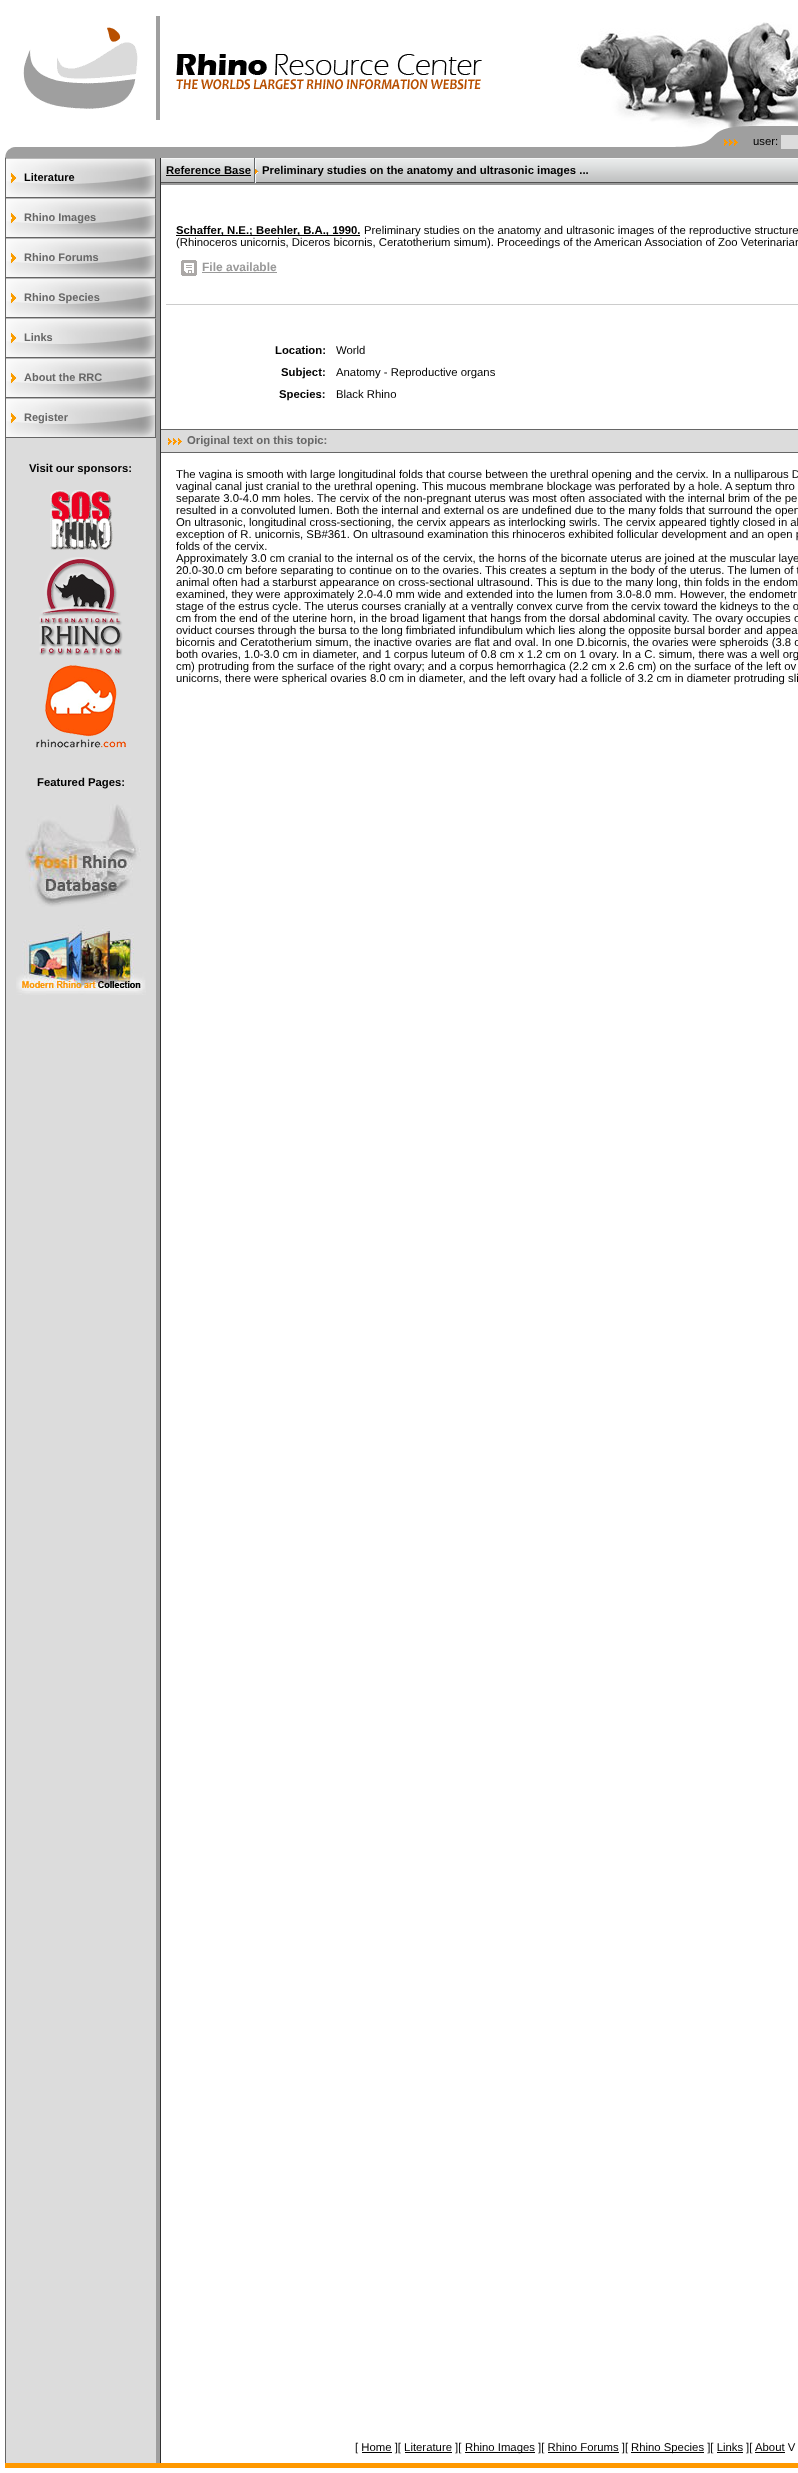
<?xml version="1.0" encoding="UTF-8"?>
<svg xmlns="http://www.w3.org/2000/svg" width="798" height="2473">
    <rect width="100%" height="100%" fill="#FFFFFF"/>
    <image x="577" y="22" width="221" height="111" href="img_01.png"/>
    <image x="23" y="16" width="459" height="104" href="img_02.png"/>
    <image x="675" y="126" width="75" height="32" href="img_03.png"/>
    <rect x="750" y="126" width="48" height="32" fill="#9F9F9F"/>
    <text x="753" y="145" font-family="Liberation Sans" font-size="11.33" fill="#000000">user:</text>
    <rect x="781" y="135" width="17" height="14" fill="#DCDCDC"/>
    <image x="5" y="147" width="11" height="11" href="img_04.png"/>
    <rect x="16" y="147" width="659" height="11" fill="#9F9F9F"/>
    <rect x="5" y="158" width="1" height="2305" fill="#666666"/>
    <rect x="6" y="438" width="150" height="2025" fill="#DCDCDC"/>
    <image x="6" y="158" width="150" height="40" href="img_05.png"/>
    <text x="24" y="181" font-family="Liberation Sans" font-size="11" font-weight="700" fill="#000000">Literature</text>
    <image x="6" y="198" width="150" height="40" href="img_05.png"/>
    <text x="24" y="221" font-family="Liberation Sans" font-size="11" font-weight="700" fill="#666666">Rhino Images</text>
    <image x="6" y="238" width="150" height="40" href="img_05.png"/>
    <text x="24" y="261" font-family="Liberation Sans" font-size="11" font-weight="700" fill="#666666">Rhino Forums</text>
    <image x="6" y="278" width="150" height="40" href="img_05.png"/>
    <text x="24" y="301" font-family="Liberation Sans" font-size="11" font-weight="700" fill="#666666">Rhino Species</text>
    <image x="6" y="318" width="150" height="40" href="img_05.png"/>
    <text x="24" y="341" font-family="Liberation Sans" font-size="11" font-weight="700" fill="#666666">Links</text>
    <image x="6" y="358" width="150" height="40" href="img_05.png"/>
    <text x="24" y="381" font-family="Liberation Sans" font-size="11" font-weight="700" fill="#666666">About the RRC</text>
    <image x="6" y="398" width="150" height="40" href="img_05.png"/>
    <text x="24" y="421" font-family="Liberation Sans" font-size="11" font-weight="700" fill="#666666">Register</text>
    <text x="29" y="472" font-family="Liberation Sans" font-size="11.33" font-weight="700" fill="#000000">Visit our sponsors:</text>
    <image x="50" y="490" width="63" height="60" href="img_06.png"/>
    <image x="39" y="557" width="84" height="99" href="img_07.png"/>
    <image x="36" y="665" width="90" height="83" href="img_08.png"/>
    <text x="37" y="786" font-family="Liberation Sans" font-size="11.33" font-weight="700" fill="#000000">Featured Pages:</text>
    <image x="25" y="804" width="116" height="103" href="img_09.png"/>
    <image x="16" y="925" width="130" height="70" href="img_10.png"/>
    <rect x="156" y="158" width="4" height="2305" fill="#9F9F9F"/>
    <rect x="160" y="158" width="1" height="2305" fill="#2F2F2F"/>
    <image x="161" y="158" width="637" height="25" href="img_11.png"/>
    <text x="166" y="174" font-family="Liberation Sans" font-size="11.33" font-weight="700" fill="#000000">Reference Base</text>
    <rect x="166" y="175" width="85" height="1" fill="#000000"/>
    <image x="254" y="158" width="5" height="25" href="img_12.png"/>
    <text x="262" y="174" font-family="Liberation Sans" font-size="11.33" font-weight="700" fill="#000000">Preliminary studies on the anatomy and ultrasonic images ...</text>
    <rect x="161" y="183" width="637" height="2" fill="#999999"/>
    <rect x="176" y="235" width="184" height="1" fill="#000000"/>
    <text x="176" y="234" font-family="Liberation Sans" font-size="11.33" font-weight="700" fill="#000000">Schaffer, N.E.; Beehler, B.A., 1990.</text>
    <text x="364" y="234" font-family="Liberation Sans" font-size="11.33" fill="#000000">Preliminary studies on the anatomy and ultrasonic images of the reproductive structure</text>
    <text x="176" y="246" font-family="Liberation Sans" font-size="11.33" fill="#000000">(Rhinoceros unicornis, Diceros bicornis, Ceratotherium simum). Proceedings of the American Association of Zoo Veterinarian</text>
    <image x="181" y="260" width="16" height="16" href="img_13.png"/>
    <text x="202" y="271" font-family="Liberation Sans" font-size="12" font-weight="700" fill="#999999">File available</text>
    <rect x="202" y="272" width="75" height="1" fill="#999999"/>
    <rect x="166" y="304" width="632" height="1" fill="#CCCCCC"/>
    <text x="275" y="354" font-family="Liberation Sans" font-size="11.33" font-weight="700" fill="#000000">Location:</text>
    <text x="336" y="354" font-family="Liberation Sans" font-size="11.33" fill="#000000">World</text>
    <text x="281" y="376" font-family="Liberation Sans" font-size="11.33" font-weight="700" fill="#000000">Subject:</text>
    <text x="336" y="376" font-family="Liberation Sans" font-size="11.33" fill="#000000">Anatomy - Reproductive organs</text>
    <text x="279" y="398" font-family="Liberation Sans" font-size="11.33" font-weight="700" fill="#000000">Species:</text>
    <text x="336" y="398" font-family="Liberation Sans" font-size="11.33" fill="#000000">Black Rhino</text>
    <rect x="161" y="429" width="637" height="1" fill="#666666"/>
    <rect x="161" y="430" width="637" height="22" fill="#DCDCDC"/>
    <image x="168" y="438" width="14" height="7" href="img_14.png"/>
    <text x="187" y="444" font-family="Liberation Sans" font-size="11.33" font-weight="700" fill="#666666">Original text on this topic:</text>
    <rect x="161" y="452" width="637" height="1" fill="#666666"/>
    <text font-family="Liberation Sans" font-size="11.33" fill="#000000">
        <tspan x="176" y="478">The vagina is smooth with large longitudinal folds that course between the urethral opening and the cervix. In a nulliparous D</tspan>
        <tspan x="176" y="490">vaginal canal just cranial to the urethral opening. This mucous membrane blockage was perforated by a hole. A septum thro</tspan>
        <tspan x="176" y="502">separate 3.0-4.0 mm holes. The cervix of the non-pregnant uterus was most often associated with the internal brim of the pe</tspan>
        <tspan x="176" y="514">resulted in a convoluted lumen. Both the internal and external os are undefined due to the many folds that surround the open</tspan>
        <tspan x="176" y="526">On ultrasonic, longitudinal cross-sectioning, the cervix appears as interlocking swirls. The cervix appeared tightly closed in al</tspan>
        <tspan x="176" y="538">exception of R. unicornis, SB#361. On ultrasound examination this rhinoceros exhibited follicular development and an open p</tspan>
        <tspan x="176" y="550">folds of the cervix.</tspan>
        <tspan x="176" y="562">Approximately 3.0 cm cranial to the internal os of the cervix, the horns of the bicornate uterus are joined at the muscular laye</tspan>
        <tspan x="176" y="574">20.0-30.0 cm before separating to continue on to the ovaries. This creates a septum in the body of the uterus. The lumen of t</tspan>
        <tspan x="176" y="586">animal often had a starburst appearance on cross-sectional ultrasound. This is due to the many long, thin folds in the endom</tspan>
        <tspan x="176" y="598">examined, they were approximately 2.0-4.0 mm wide and extended into the lumen from 3.0-8.0 mm. However, the endometr</tspan>
        <tspan x="176" y="610">stage of the estrus cycle. The uterus courses cranially at a ventrally convex curve from the cervix toward the kidneys to the o</tspan>
        <tspan x="176" y="622">cm from the end of the uterine horn, in the broad ligament that hangs from the dorsal abdominal cavity. The ovary occupies o</tspan>
        <tspan x="176" y="634">oviduct courses through the bursa to the long fimbriated infundibulum which lies along the opposite bursal border and appea</tspan>
        <tspan x="176" y="646">bicornis and Ceratotherium simum, the inactive ovaries are flat and oval. In one D.bicornis, the ovaries were spheroids (3.8 c</tspan>
        <tspan x="176" y="658">both ovaries, 1.0-3.0 cm in diameter, and 1 corpus luteum of 0.8 cm x 1.2 cm on 1 ovary. In a C. simum, there was a well org</tspan>
        <tspan x="176" y="670">cm) protruding from the surface of the right ovary; and a corpus hemorrhagica (2.2 cm x 2.6 cm) on the surface of the left ov</tspan>
        <tspan x="176" y="682">unicorns, there were spherical ovaries 8.0 cm in diameter, and the left ovary had a follicle of 3.2 cm in diameter protruding sli</tspan>
    </text>
    <text x="355" y="2451" font-family="Liberation Sans" font-size="11.33" fill="#000000">[ Home ][ Literature ][</text>
    <rect x="465" y="2452" width="70" height="1" fill="#000000"/>
    <text x="465" y="2451" font-family="Liberation Sans" font-size="11.33" fill="#000000">Rhino Images ][ Rhino Forums ][</text>
    <rect x="631" y="2452" width="73" height="1" fill="#000000"/>
    <text x="631" y="2451" font-family="Liberation Sans" font-size="11.33" fill="#000000">Rhino Species ][ Links</text>
    <text x="746" y="2451" font-family="Liberation Sans" font-size="11.33" fill="#000000">][</text>
    <text x="755" y="2451" font-family="Liberation Sans" font-size="11.33" fill="#000000">About V</text>
    <rect x="755" y="2452" width="30" height="1" fill="#000000"/>
    <rect x="362" y="2452" width="30" height="1" fill="#000000"/>
    <rect x="405" y="2452" width="47" height="1" fill="#000000"/>
    <rect x="548" y="2452" width="71" height="1" fill="#000000"/>
    <rect x="717" y="2452" width="26" height="1" fill="#000000"/>
    <rect x="5" y="2463" width="793" height="5" fill="#FF9900"/>
</svg>
